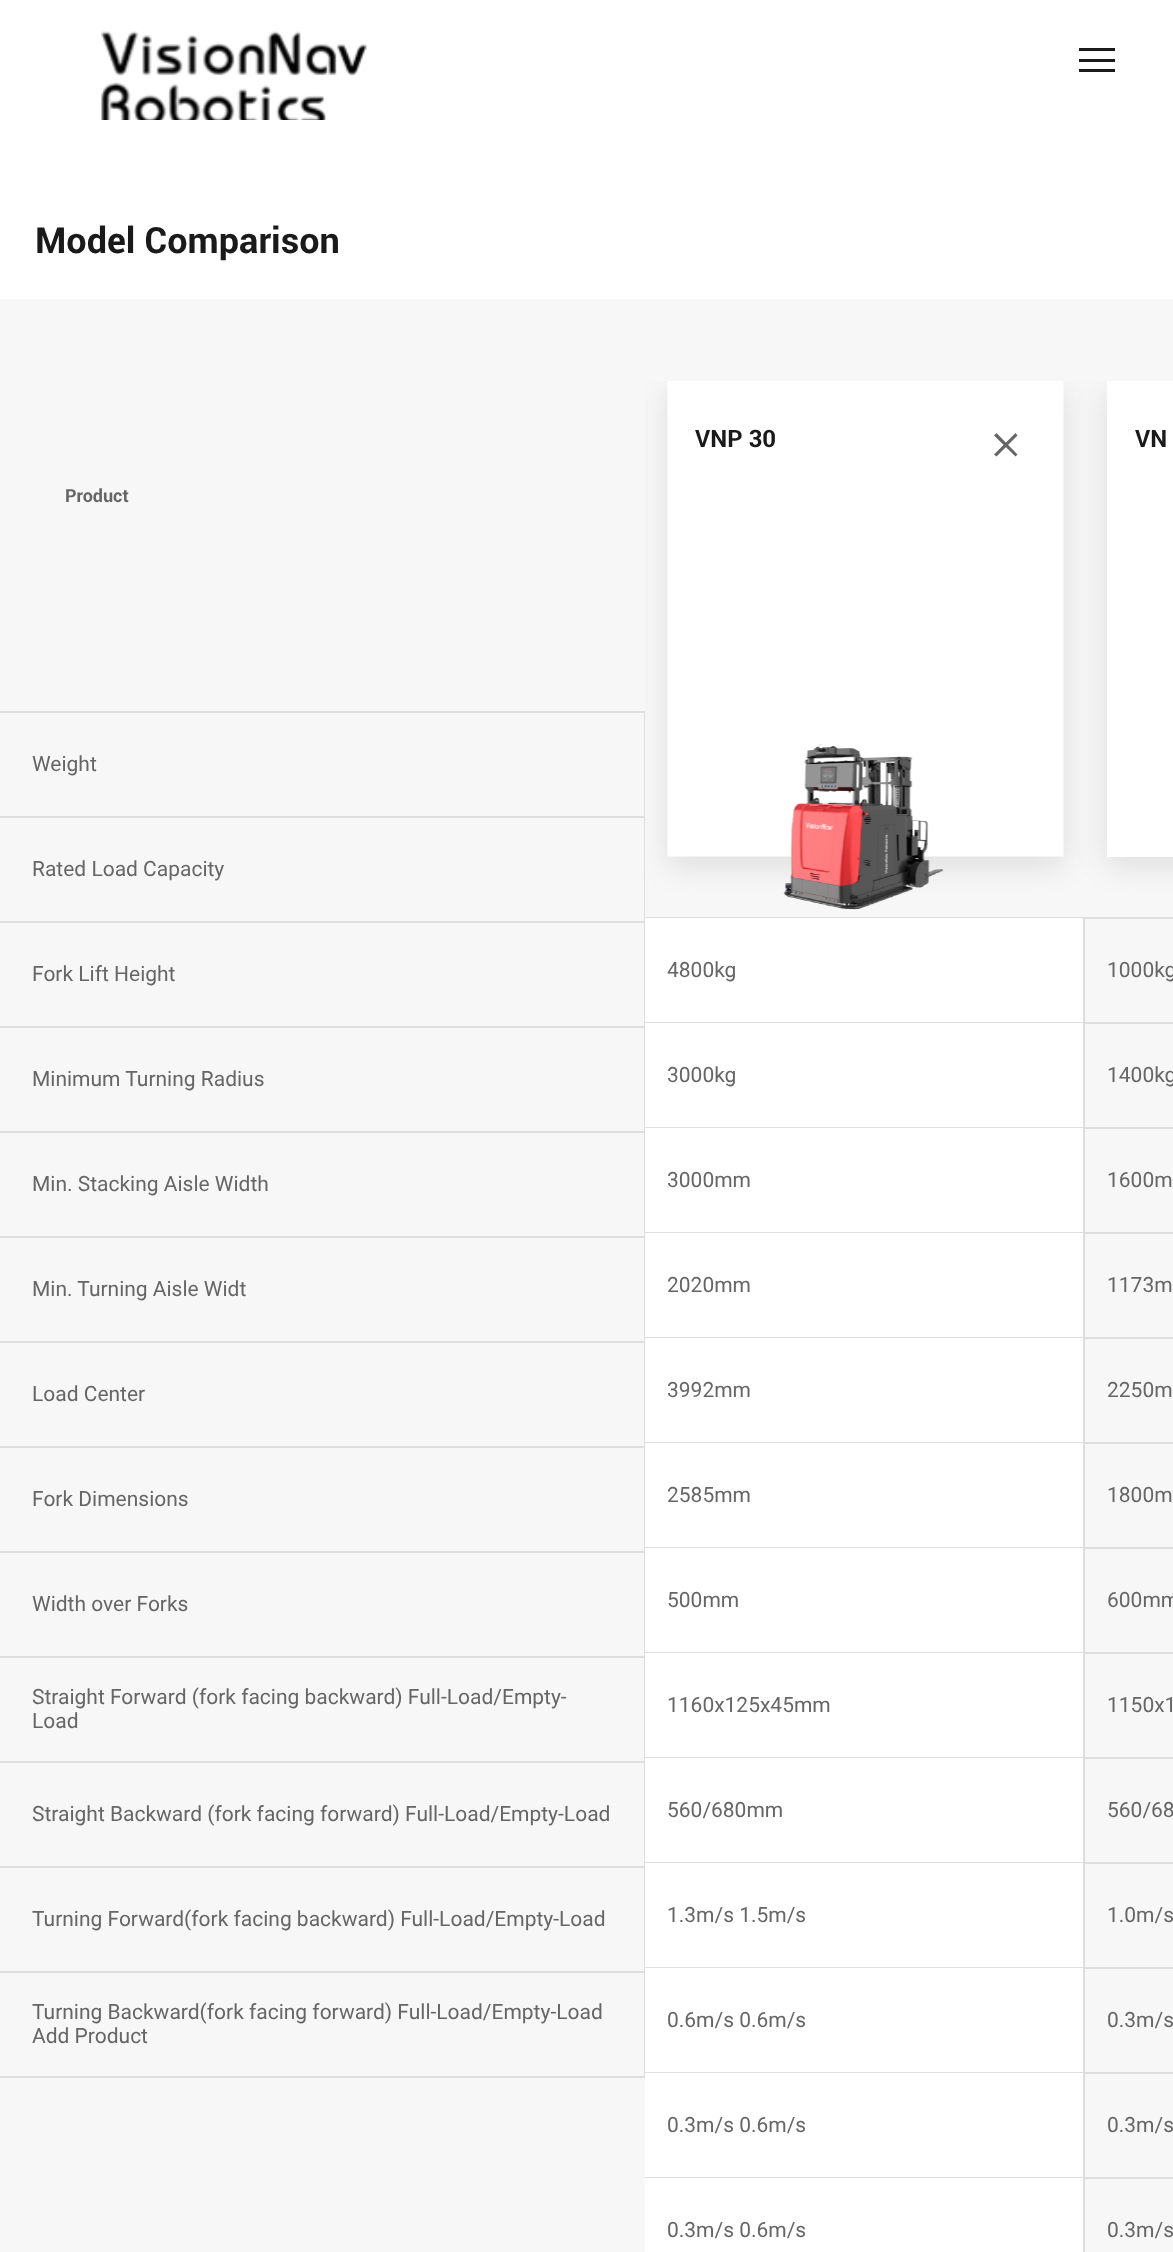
<?xml version="1.0" encoding="UTF-8"?>
<svg xmlns="http://www.w3.org/2000/svg" width="1173" height="2252">
    <defs>
        <clipPath id="clip1"><rect x="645" y="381" width="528" height="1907"/></clipPath>
        <filter id="blur1" x="-50%" y="-200%" width="200%" height="500%"><feGaussianBlur stdDeviation="15"/></filter>
    </defs>
    <rect width="100%" height="100%" fill="#FFFFFF"/>
    <image x="101" y="31" width="266" height="89" href="img_01.png"/>
    <rect x="1079" y="59" width="36" height="3" fill="#1A1A1A"/>
    <rect x="1079" y="48" width="36" height="3" fill="#1A1A1A"/>
    <rect x="1079" y="69" width="36" height="3" fill="#1A1A1A"/>
    <text x="35" y="253" font-family="Roboto" font-size="36" font-weight="700" fill="#1A1A1A">Model Comparison</text>
    <rect x="0" y="299" width="1173" height="1953" fill="#F7F7F7"/>
    <text x="65" y="502" font-family="Roboto" font-size="18" font-weight="700" fill="#666666">Product</text>
    <rect x="0" y="711" width="645" height="2" fill="#DEDEDE"/>
    <rect x="644" y="713" width="1" height="1365" fill="#DEDEDE"/>
    <rect x="0" y="816" width="645" height="2" fill="#DEDEDE"/>
    <text x="32" y="771" font-family="Roboto" font-size="21" fill="#666666">Weight</text>
    <rect x="0" y="921" width="645" height="2" fill="#DEDEDE"/>
    <text x="32" y="876" font-family="Roboto" font-size="21" fill="#666666">Rated Load Capacity</text>
    <rect x="0" y="1026" width="645" height="2" fill="#DEDEDE"/>
    <text x="32" y="981" font-family="Roboto" font-size="21" fill="#666666">Fork Lift Height</text>
    <rect x="0" y="1131" width="645" height="2" fill="#DEDEDE"/>
    <text x="32" y="1086" font-family="Roboto" font-size="21" fill="#666666">Minimum Turning Radius</text>
    <rect x="0" y="1236" width="645" height="2" fill="#DEDEDE"/>
    <text x="32" y="1191" font-family="Roboto" font-size="21" fill="#666666">Min. Stacking Aisle Width</text>
    <rect x="0" y="1341" width="645" height="2" fill="#DEDEDE"/>
    <text x="32" y="1296" font-family="Roboto" font-size="21" fill="#666666">Min. Turning Aisle Widt</text>
    <rect x="0" y="1446" width="645" height="2" fill="#DEDEDE"/>
    <text x="32" y="1401" font-family="Roboto" font-size="21" fill="#666666">Load Center</text>
    <rect x="0" y="1551" width="645" height="2" fill="#DEDEDE"/>
    <text x="32" y="1506" font-family="Roboto" font-size="21" fill="#666666">Fork Dimensions</text>
    <rect x="0" y="1656" width="645" height="2" fill="#DEDEDE"/>
    <text x="32" y="1611" font-family="Roboto" font-size="21" fill="#666666">Width over Forks</text>
    <rect x="0" y="1761" width="645" height="2" fill="#DEDEDE"/>
    <text font-family="Roboto" font-size="21" fill="#666666">
        <tspan x="32" y="1704">Straight Forward (fork facing backward) Full-Load/Empty-</tspan>
        <tspan x="32" y="1728">Load</tspan>
    </text>
    <rect x="0" y="1866" width="645" height="2" fill="#DEDEDE"/>
    <text x="32" y="1821" font-family="Roboto" font-size="21" fill="#666666">Straight Backward (fork facing forward) Full-Load/Empty-Load</text>
    <rect x="0" y="1971" width="645" height="2" fill="#DEDEDE"/>
    <text x="32" y="1926" font-family="Roboto" font-size="21" fill="#666666">Turning Forward(fork facing backward) Full-Load/Empty-Load</text>
    <rect x="0" y="2076" width="645" height="2" fill="#DEDEDE"/>
    <text font-family="Roboto" font-size="21" fill="#666666">
        <tspan x="32" y="2019">Turning Backward(fork facing forward) Full-Load/Empty-Load</tspan>
        <tspan x="32" y="2043">Add Product</tspan>
    </text>
    <g clip-path="url(#clip1)">
        <rect x="668" y="390" width="396" height="476" fill="#000000" fill-opacity="0.1" filter="url(#blur1)"/>
    </g>
    <image x="667" y="381" width="397" height="476" href="img_02.png"/>
    <image x="783" y="744" width="161" height="166" href="img_03.png"/>
    <text x="695" y="447" font-family="Roboto" font-size="24" font-weight="700" fill="#1A1A1A">VNP 30</text>
    <path d="M 996.5 433 L 1017.5 454.5 L 1015.5 456.5 L 994 435.5 Z" fill="#666666"/>
    <path d="M 1015.5 433 L 1017.5 435.5 L 996.5 456.5 L 994 454.5 Z" fill="#666666"/>
    <rect x="645" y="917" width="440" height="1" fill="#DEDEDE"/>
    <rect x="645" y="918" width="438" height="104" fill="#FFFFFF"/>
    <rect x="1083" y="918" width="2" height="1334" fill="#DEDEDE"/>
    <rect x="645" y="1022" width="440" height="1" fill="#DEDEDE"/>
    <text x="667" y="977" font-family="Roboto" font-size="21" fill="#666666">4800kg</text>
    <rect x="645" y="1023" width="438" height="104" fill="#FFFFFF"/>
    <rect x="645" y="1127" width="440" height="1" fill="#DEDEDE"/>
    <text x="667" y="1082" font-family="Roboto" font-size="21" fill="#666666">3000kg</text>
    <rect x="645" y="1128" width="438" height="104" fill="#FFFFFF"/>
    <rect x="645" y="1232" width="440" height="1" fill="#DEDEDE"/>
    <text x="667" y="1187" font-family="Roboto" font-size="21" fill="#666666">3000mm</text>
    <rect x="645" y="1233" width="438" height="104" fill="#FFFFFF"/>
    <rect x="645" y="1337" width="440" height="1" fill="#DEDEDE"/>
    <text x="667" y="1292" font-family="Roboto" font-size="21" fill="#666666">2020mm</text>
    <rect x="645" y="1338" width="438" height="104" fill="#FFFFFF"/>
    <rect x="645" y="1442" width="440" height="1" fill="#DEDEDE"/>
    <text x="667" y="1397" font-family="Roboto" font-size="21" fill="#666666">3992mm</text>
    <rect x="645" y="1443" width="438" height="104" fill="#FFFFFF"/>
    <rect x="645" y="1547" width="440" height="1" fill="#DEDEDE"/>
    <text x="667" y="1502" font-family="Roboto" font-size="21" fill="#666666">2585mm</text>
    <rect x="645" y="1548" width="438" height="104" fill="#FFFFFF"/>
    <rect x="645" y="1652" width="440" height="1" fill="#DEDEDE"/>
    <text x="667" y="1607" font-family="Roboto" font-size="21" fill="#666666">500mm</text>
    <rect x="645" y="1653" width="438" height="104" fill="#FFFFFF"/>
    <rect x="645" y="1757" width="440" height="1" fill="#DEDEDE"/>
    <text x="667" y="1712" font-family="Roboto" font-size="21" fill="#666666">1160x125x45mm</text>
    <rect x="645" y="1758" width="438" height="104" fill="#FFFFFF"/>
    <rect x="645" y="1862" width="440" height="1" fill="#DEDEDE"/>
    <text x="667" y="1817" font-family="Roboto" font-size="21" fill="#666666">560/680mm</text>
    <rect x="645" y="1863" width="438" height="104" fill="#FFFFFF"/>
    <rect x="645" y="1967" width="440" height="1" fill="#DEDEDE"/>
    <text x="667" y="1922" font-family="Roboto" font-size="21" fill="#666666">1.3m/s 1.5m/s</text>
    <rect x="645" y="1968" width="438" height="104" fill="#FFFFFF"/>
    <rect x="645" y="2072" width="440" height="1" fill="#DEDEDE"/>
    <text x="667" y="2027" font-family="Roboto" font-size="21" fill="#666666">0.6m/s 0.6m/s</text>
    <rect x="645" y="2073" width="438" height="104" fill="#FFFFFF"/>
    <rect x="645" y="2177" width="440" height="1" fill="#DEDEDE"/>
    <text x="667" y="2132" font-family="Roboto" font-size="21" fill="#666666">0.3m/s 0.6m/s</text>
    <rect x="645" y="2178" width="438" height="74" fill="#FFFFFF"/>
    <text x="667" y="2237" font-family="Roboto" font-size="21" fill="#666666">0.3m/s 0.6m/s</text>
    <g clip-path="url(#clip1)">
        <rect x="1107" y="390" width="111" height="476" fill="#000000" fill-opacity="0.1" filter="url(#blur1)"/>
    </g>
    <rect x="1107" y="381" width="66" height="476" fill="#FFFFFF"/>
    <text x="1135" y="447" font-family="Roboto" font-size="24" font-weight="700" fill="#1A1A1A">VN</text>
    <rect x="1085" y="917" width="88" height="2" fill="#DEDEDE"/>
    <rect x="1085" y="1022" width="88" height="2" fill="#DEDEDE"/>
    <text x="1107" y="977" font-family="Roboto" font-size="21" fill="#666666">1000kg</text>
    <rect x="1085" y="1127" width="88" height="2" fill="#DEDEDE"/>
    <text x="1107" y="1082" font-family="Roboto" font-size="21" fill="#666666">1400kg</text>
    <rect x="1085" y="1232" width="88" height="2" fill="#DEDEDE"/>
    <text x="1107" y="1187" font-family="Roboto" font-size="21" fill="#666666">1600m</text>
    <rect x="1085" y="1337" width="88" height="2" fill="#DEDEDE"/>
    <text x="1107" y="1292" font-family="Roboto" font-size="21" fill="#666666">1173m</text>
    <rect x="1085" y="1442" width="88" height="2" fill="#DEDEDE"/>
    <text x="1107" y="1397" font-family="Roboto" font-size="21" fill="#666666">2250m</text>
    <rect x="1085" y="1547" width="88" height="2" fill="#DEDEDE"/>
    <text x="1107" y="1502" font-family="Roboto" font-size="21" fill="#666666">1800m</text>
    <rect x="1085" y="1652" width="88" height="2" fill="#DEDEDE"/>
    <text x="1107" y="1607" font-family="Roboto" font-size="21" fill="#666666">600mm</text>
    <rect x="1085" y="1757" width="88" height="2" fill="#DEDEDE"/>
    <text x="1107" y="1712" font-family="Roboto" font-size="21" fill="#666666">1150x1</text>
    <rect x="1085" y="1862" width="88" height="2" fill="#DEDEDE"/>
    <text x="1107" y="1817" font-family="Roboto" font-size="21" fill="#666666">560/68</text>
    <rect x="1085" y="1967" width="88" height="2" fill="#DEDEDE"/>
    <text x="1107" y="1922" font-family="Roboto" font-size="21" fill="#666666">1.0m/s</text>
    <rect x="1085" y="2072" width="88" height="2" fill="#DEDEDE"/>
    <text x="1107" y="2027" font-family="Roboto" font-size="21" fill="#666666">0.3m/s</text>
    <rect x="1085" y="2177" width="88" height="2" fill="#DEDEDE"/>
    <text x="1107" y="2132" font-family="Roboto" font-size="21" fill="#666666">0.3m/s</text>
    <text x="1107" y="2237" font-family="Roboto" font-size="21" fill="#666666">0.3m/s</text>
</svg>
